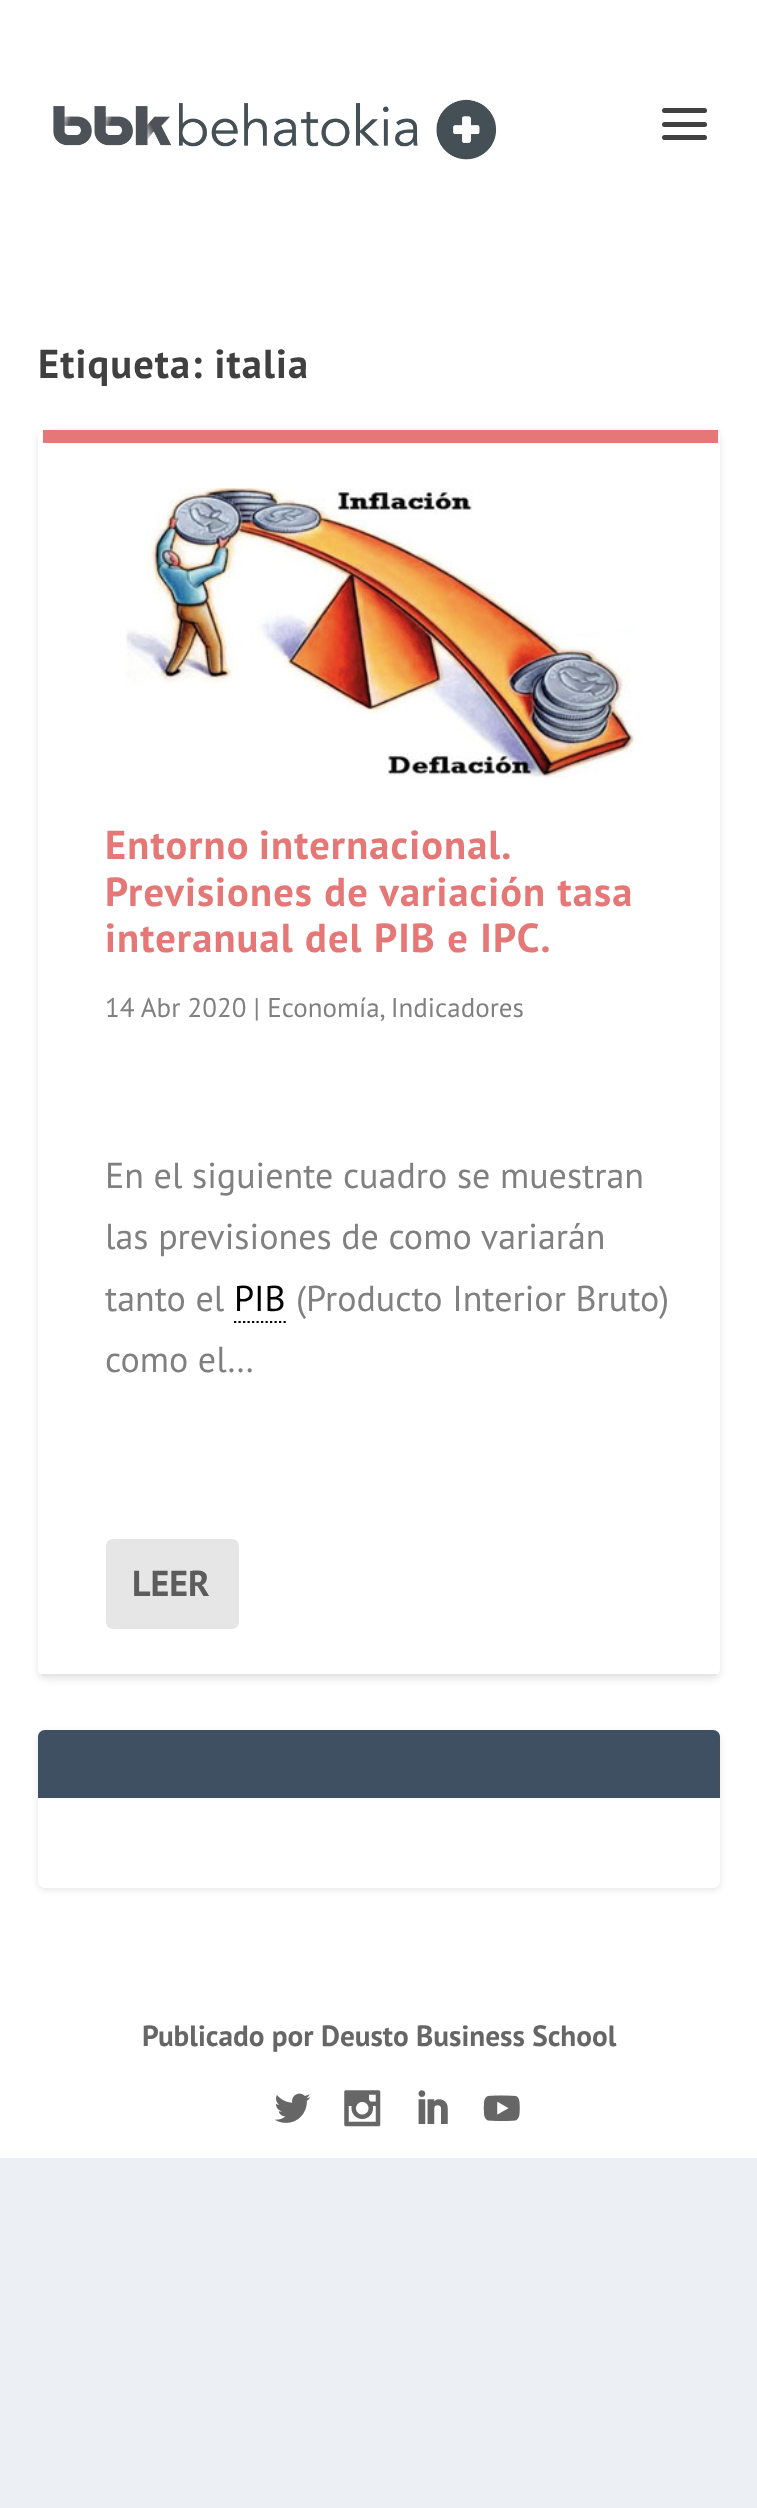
<?xml version="1.0" encoding="UTF-8"?>
<svg xmlns="http://www.w3.org/2000/svg" width="757" height="2508">
    <defs>
        <filter id="blur1" x="-50%" y="-200%" width="200%" height="500%"><feGaussianBlur stdDeviation="3.5"/></filter>
    </defs>
    <rect width="100%" height="100%" fill="#ECF0F5"/>
    <rect x="0" y="0" width="757" height="2158" fill="#FFFFFF"/>
    <image x="53" y="99" width="444" height="61" href="img_01.png"/>
    <rect x="662" y="108" width="45" height="5" rx="2.5" fill="#404040"/>
    <rect x="662" y="122" width="45" height="5" rx="2.5" fill="#404040"/>
    <rect x="662" y="135" width="45" height="5" rx="2.5" fill="#404040"/>
    <text x="38" y="378" font-family="PT Sans" font-size="40.5" font-weight="700" letter-spacing="1.1" fill="#404040">Etiqueta: italia</text>
    <rect x="38" y="432" width="682" height="1247" rx="7" fill="#000000" fill-opacity="0.1" filter="url(#blur1)"/>
    <rect x="38" y="430" width="682" height="1246" rx="7" fill="#FFFFFF"/>
    <rect x="43" y="430" width="675" height="13" fill="#E67777"/>
    <path d="M 43 1676 L 40 1674 H 718 L 715 1676 Z" fill="#E5E5E5"/>
    <image x="125" y="488" width="516" height="290" href="img_02.png"/>
    <text font-family="PT Sans" font-size="40.5" font-weight="700" letter-spacing="1.1" fill="#E67777">
        <tspan x="105" y="859" word-spacing="-2">Entorno internacional.</tspan>
        <tspan x="105" y="906">Previsiones de variación tasa</tspan>
        <tspan x="105" y="952">interanual del PIB e IPC.</tspan>
    </text>
    <text x="105" y="1017" font-family="PT Sans" font-size="27" fill="#808080">14 Abr 2020 | Economía, Indicadores</text>
    <text font-family="PT Sans" font-size="36" fill="#808080">
        <tspan x="105" y="1188">En el siguiente cuadro se muestran</tspan>
        <tspan x="105" y="1249">las previsiones de como variarán</tspan>
        <tspan x="105" y="1311">tanto el</tspan>
    </text>
    <text x="234" y="1311" font-family="PT Sans" font-size="36" fill="#000000">PIB</text>
    <path d="M 234 1322 H 286" fill="none" stroke="#000000" stroke-width="2.2" stroke-dasharray="2.25 2.25"/>
    <text x="296" y="1311" font-family="PT Sans" font-size="36" fill="#808080">(Producto Interior Bruto)</text>
    <text x="105" y="1372" font-family="PT Sans" font-size="36" fill="#808080">como el…</text>
    <rect x="106" y="1539" width="133" height="90" rx="7" fill="#E6E6E6"/>
    <text x="132" y="1596" font-family="PT Sans" font-size="36" font-weight="700" fill="#5C5C5C">LEER</text>
    <rect x="38" y="1733" width="682" height="157" rx="7" fill="#000000" fill-opacity="0.1" filter="url(#blur1)"/>
    <rect x="38" y="1730" width="682" height="158" rx="7" fill="#FFFFFF"/>
    <path d="M 45 1730 H 713 C 717 1730 720 1733 720 1737 V 1798 H 38 V 1737 C 38 1733 41 1730 45 1730 Z" fill="#3E5062"/>
    <text x="142" y="2046" font-family="PT Sans" font-size="29.25" font-weight="700" fill="#666666">Publicado por Deusto Business School</text>
    <image x="274" y="2093" width="37" height="30" href="img_03.png"/>
    <image x="344" y="2090" width="37" height="37" href="img_04.png"/>
    <image x="418" y="2090" width="30" height="34" href="img_05.png"/>
    <image x="483" y="2095" width="37" height="27" href="img_06.png"/>
</svg>
